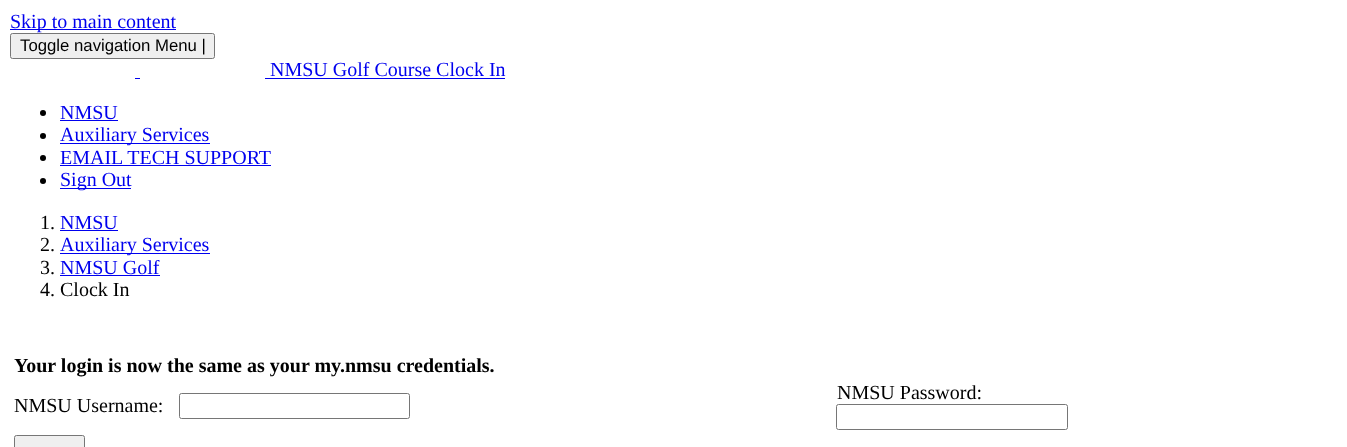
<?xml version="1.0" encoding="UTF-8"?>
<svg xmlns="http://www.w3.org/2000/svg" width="1347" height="447">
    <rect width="100%" height="100%" fill="#FFFFFF"/>
    <rect x="10" y="29" width="166" height="1" fill="#0000EE"/>
    <text x="10" y="28" font-family="Liberation Serif" font-size="20" fill="#0000EE">Skip to main content</text>
    <rect x="10.5" y="33.5" width="204" height="25" rx="2" fill="#EFEFEF" stroke="#767676"/>
    <text x="20" y="51" font-family="Liberation Sans" font-size="16.75" fill="#000000">Toggle navigation Menu |</text>
    <text x="270" y="76" font-family="Liberation Serif" font-size="20" fill="#0000EE">NMSU Golf Course Clock In</text>
    <rect x="135" y="78" width="5" height="1" fill="#0000EE"/>
    <rect x="265" y="78" width="240" height="1" fill="#0000EE"/>
    <circle cx="43" cy="113" r="3" fill="#000000"/>
    <text x="60" y="119" font-family="Liberation Serif" font-size="20" fill="#0000EE">NMSU</text>
    <rect x="60" y="120" width="58" height="1" fill="#0000EE"/>
    <circle cx="43" cy="136" r="3" fill="#000000"/>
    <rect x="60" y="143" width="150" height="1" fill="#0000EE"/>
    <text x="60" y="141" font-family="Liberation Serif" font-size="20" fill="#0000EE">Auxiliary Services</text>
    <circle cx="43" cy="158" r="3" fill="#000000"/>
    <text x="60" y="164" font-family="Liberation Serif" font-size="20" fill="#0000EE">EMAIL TECH SUPPORT</text>
    <rect x="60" y="165" width="211" height="1" fill="#0000EE"/>
    <circle cx="43" cy="181" r="3" fill="#000000"/>
    <rect x="60" y="188" width="71" height="1" fill="#0000EE"/>
    <text x="60" y="186" font-family="Liberation Serif" font-size="20" fill="#0000EE">Sign Out</text>
    <text x="40" y="229" font-family="Liberation Serif" font-size="20" fill="#000000">1.</text>
    <text x="60" y="229" font-family="Liberation Serif" font-size="20" fill="#0000EE">NMSU</text>
    <rect x="60" y="230" width="58" height="1" fill="#0000EE"/>
    <text x="40" y="251" font-family="Liberation Serif" font-size="20" fill="#000000">2.</text>
    <rect x="60" y="253" width="150" height="1" fill="#0000EE"/>
    <text x="60" y="251" font-family="Liberation Serif" font-size="20" fill="#0000EE">Auxiliary Services</text>
    <text x="40" y="274" font-family="Liberation Serif" font-size="20" fill="#000000">3.</text>
    <text x="60" y="274" font-family="Liberation Serif" font-size="20" fill="#0000EE">NMSU Golf</text>
    <rect x="60" y="275" width="100" height="1" fill="#0000EE"/>
    <text x="40" y="296" font-family="Liberation Serif" font-size="20" fill="#000000">4. Clock In</text>
    <text x="14" y="372" font-family="Liberation Serif" font-size="20" font-weight="700" fill="#000000">Your login is now the same as your my.nmsu credentials.</text>
    <text x="837" y="399" font-family="Liberation Serif" font-size="20" fill="#000000">NMSU Password:</text>
    <rect x="836.5" y="404.5" width="231" height="25" rx="2" fill="none" stroke="#767676"/>
    <text x="14" y="412" font-family="Liberation Serif" font-size="20" fill="#000000">NMSU Username:</text>
    <rect x="179.5" y="393.5" width="230" height="25" rx="2" fill="none" stroke="#767676"/>
    <rect x="14.5" y="435.5" width="70" height="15" rx="2" fill="#EFEFEF" stroke="#767676"/>
</svg>
